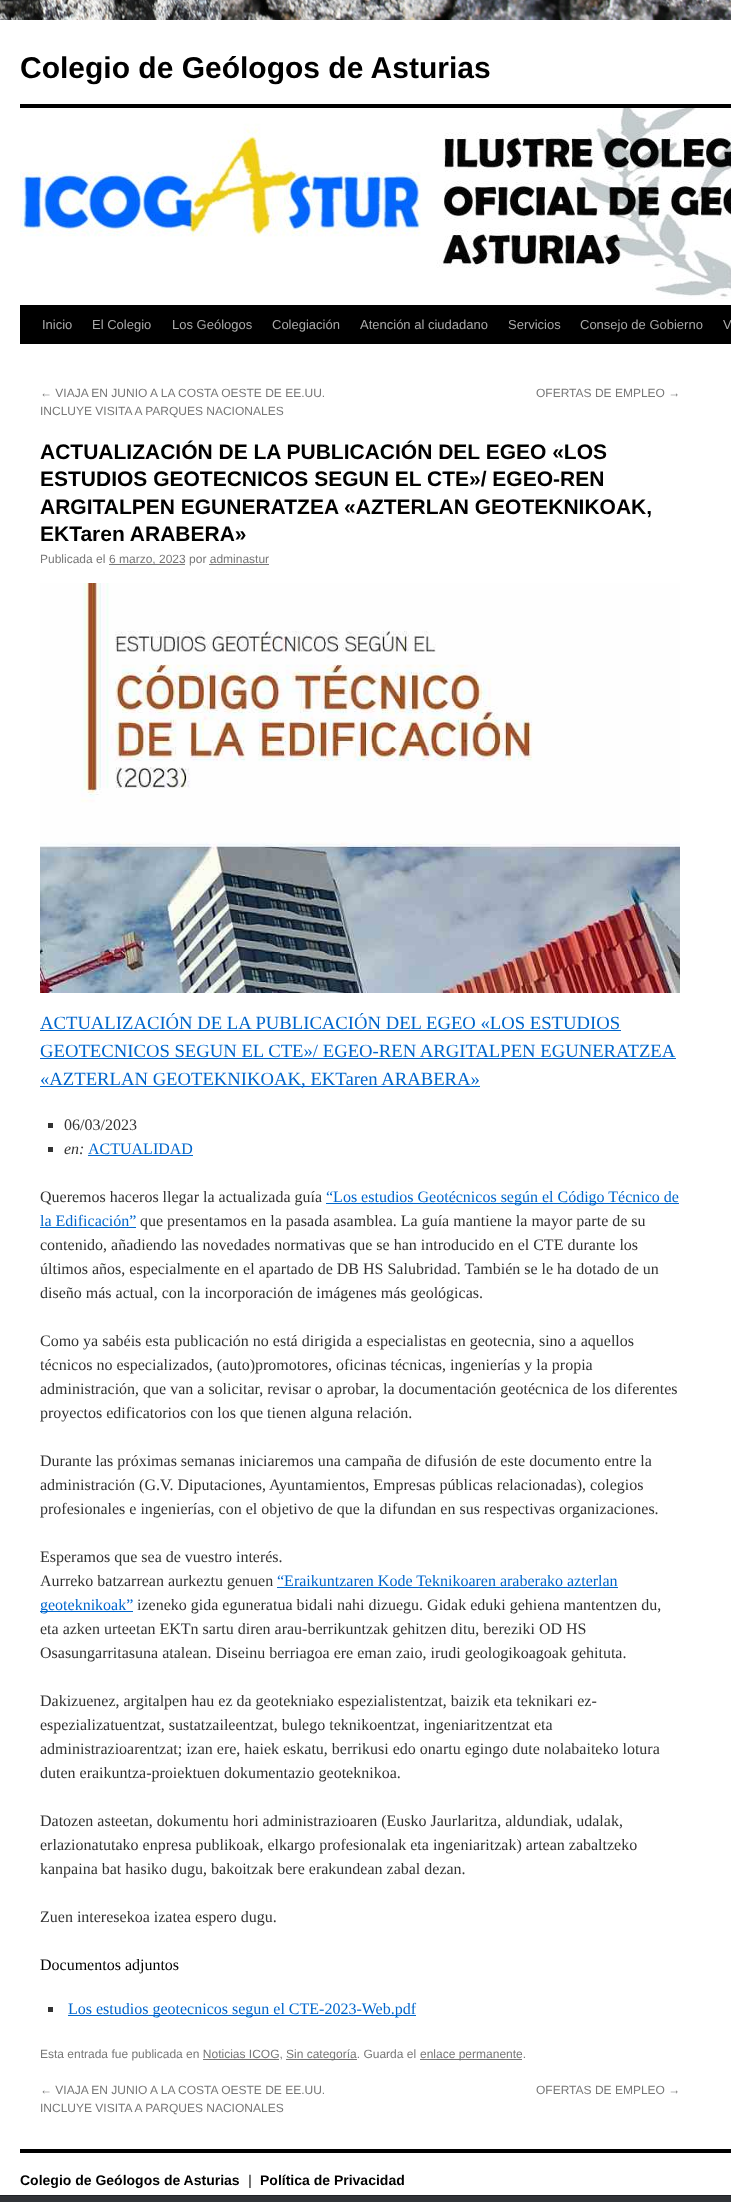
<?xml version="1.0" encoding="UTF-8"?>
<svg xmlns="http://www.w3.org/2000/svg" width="731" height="2202">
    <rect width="100%" height="100%" fill="#FFFFFF"/>
    <image x="0" y="0" width="731" height="20" href="img_01.png"/>
    <text x="20" y="78" font-family="Liberation Sans" font-size="30" font-weight="700" fill="#000000">Colegio de Geólogos de Asturias</text>
    <rect x="20" y="104" width="711" height="4" fill="#000000"/>
    <rect x="20" y="305" width="711" height="39" fill="#000000"/>
    <image x="20" y="108" width="711" height="191" href="img_02.png"/>
    <text x="42" y="329" font-family="Liberation Sans" font-size="13" fill="#AAAAAA">Inicio</text>
    <text x="92" y="329" font-family="Liberation Sans" font-size="13" fill="#AAAAAA">El Colegio</text>
    <text x="172" y="329" font-family="Liberation Sans" font-size="13" fill="#AAAAAA">Los Geólogos</text>
    <text x="272" y="329" font-family="Liberation Sans" font-size="13" fill="#AAAAAA">Colegiación</text>
    <text x="360" y="329" font-family="Liberation Sans" font-size="13" fill="#AAAAAA">Atención al ciudadano</text>
    <text x="508" y="329" font-family="Liberation Sans" font-size="13" fill="#AAAAAA">Servicios</text>
    <text x="580" y="329" font-family="Liberation Sans" font-size="13" fill="#AAAAAA">Consejo de Gobierno</text>
    <text x="723" y="329" font-family="Liberation Sans" font-size="13" fill="#AAAAAA">V</text>
    <text font-family="Liberation Sans" font-size="12" fill="#777777">
        <tspan x="40" y="397">← VIAJA EN JUNIO A LA COSTA OESTE DE EE.UU.</tspan>
        <tspan x="40" y="415">INCLUYE VISITA A PARQUES NACIONALES</tspan>
    </text>
    <text x="536" y="397" font-family="Liberation Sans" font-size="12" fill="#777777">OFERTAS DE EMPLEO →</text>
    <text font-family="Liberation Sans" font-size="21" font-weight="700" fill="#000000">
        <tspan x="40" y="459">ACTUALIZACIÓN DE LA PUBLICACIÓN DEL EGEO «LOS</tspan>
        <tspan x="40" y="486">ESTUDIOS GEOTECNICOS SEGUN EL CTE»/ EGEO-REN</tspan>
        <tspan x="40" y="514">ARGITALPEN EGUNERATZEA «AZTERLAN GEOTEKNIKOAK,</tspan>
        <tspan x="40" y="541">EKTaren ARABERA»</tspan>
    </text>
    <text x="40" y="563" font-family="Liberation Sans" font-size="12" fill="#777777">Publicada el</text>
    <rect x="109" y="564" width="76" height="1" fill="#777777"/>
    <text x="109" y="563" font-family="Liberation Sans" font-size="12" fill="#777777">6 marzo, 2023 por adminastur</text>
    <rect x="209" y="564" width="60" height="1" fill="#777777"/>
    <image x="40" y="583" width="640" height="410" href="img_03.png"/>
    <text x="40" y="1029" font-family="Liberation Serif" font-size="18.7" fill="#0066CC">ACTUALIZACIÓN DE LA PUBLICACIÓN DEL EGEO «LOS ESTUDIOS</text>
    <rect x="40" y="1030" width="581" height="1" fill="#0066CC"/>
    <text x="40" y="1057" font-family="Liberation Serif" font-size="18.7" fill="#0066CC">GEOTECNICOS SEGUN EL CTE»/ EGEO-REN ARGITALPEN EGUNERATZEA</text>
    <rect x="40" y="1058" width="636" height="1" fill="#0066CC"/>
    <rect x="40" y="1086" width="440" height="1" fill="#0066CC"/>
    <text x="40" y="1085" font-family="Liberation Serif" font-size="18.7" fill="#0066CC">«AZTERLAN GEOTEKNIKOAK, EKTaren ARABERA»</text>
    <rect x="48" y="1123" width="5" height="5" fill="#333333"/>
    <text x="64" y="1130" font-family="Liberation Serif" font-size="16" fill="#333333">06/03/2023</text>
    <rect x="48" y="1147" width="5" height="5" fill="#333333"/>
    <text x="64" y="1154" font-family="Liberation Serif" font-size="16" font-style="italic" fill="#333333">en:</text>
    <text x="88" y="1154" font-family="Liberation Serif" font-size="16" fill="#0066CC">ACTUALIDAD</text>
    <rect x="88" y="1155" width="105" height="1" fill="#0066CC"/>
    <text x="40" y="1202" font-family="Liberation Serif" font-size="16" fill="#333333">Queremos haceros llegar la actualizada guía</text>
    <rect x="326" y="1203" width="353" height="1" fill="#0066CC"/>
    <text x="326" y="1202" font-family="Liberation Serif" font-size="16" fill="#0066CC">“Los estudios Geotécnicos según el Código Técnico de</text>
    <text x="40" y="1226" font-family="Liberation Serif" font-size="16" fill="#0066CC">la Edificación”</text>
    <rect x="40" y="1227" width="96" height="1" fill="#0066CC"/>
    <text x="140" y="1226" font-family="Liberation Serif" font-size="16" fill="#333333">que presentamos en la pasada asamblea. La guía mantiene la mayor parte de su</text>
    <text font-family="Liberation Serif" font-size="16" fill="#333333">
        <tspan x="40" y="1250">contenido, añadiendo las novedades normativas que se han introducido en el CTE durante los</tspan>
        <tspan x="40" y="1274">últimos años, especialmente en el apartado de DB HS Salubridad. También se le ha dotado de un</tspan>
        <tspan x="40" y="1298">diseño más actual, con la incorporación de imágenes más geológicas.</tspan>
    </text>
    <text font-family="Liberation Serif" font-size="16" fill="#333333">
        <tspan x="40" y="1346">Como ya sabéis esta publicación no está dirigida a especialistas en geotecnia, sino a aquellos</tspan>
        <tspan x="40" y="1370">técnicos no especializados, (auto)promotores, oficinas técnicas, ingenierías y la propia</tspan>
        <tspan x="40" y="1394">administración, que van a solicitar, revisar o aprobar, la documentación geotécnica de los diferentes</tspan>
        <tspan x="40" y="1418">proyectos edificatorios con los que tienen alguna relación.</tspan>
    </text>
    <text font-family="Liberation Serif" font-size="16" fill="#333333">
        <tspan x="40" y="1466">Durante las próximas semanas iniciaremos una campaña de difusión de este documento entre la</tspan>
        <tspan x="40" y="1490">administración (G.V. Diputaciones, Ayuntamientos, Empresas públicas relacionadas), colegios</tspan>
        <tspan x="40" y="1514">profesionales e ingenierías, con el objetivo de que la difundan en sus respectivas organizaciones.</tspan>
    </text>
    <text font-family="Liberation Serif" font-size="16" fill="#333333">
        <tspan x="40" y="1562">Esperamos que sea de vuestro interés.</tspan>
        <tspan x="40" y="1586">Aurreko batzarrean aurkeztu genuen</tspan>
    </text>
    <text x="277" y="1586" font-family="Liberation Serif" font-size="16" fill="#0066CC">“Eraikuntzaren Kode Teknikoaren araberako azterlan</text>
    <rect x="277" y="1587" width="341" height="1" fill="#0066CC"/>
    <rect x="40" y="1611" width="93" height="1" fill="#0066CC"/>
    <text x="40" y="1610" font-family="Liberation Serif" font-size="16" fill="#0066CC">geoteknikoak”</text>
    <text x="137" y="1610" font-family="Liberation Serif" font-size="16" fill="#333333">izeneko gida eguneratua bidali nahi dizuegu. Gidak eduki gehiena mantentzen du,</text>
    <text font-family="Liberation Serif" font-size="16" fill="#333333">
        <tspan x="40" y="1634">eta azken urteetan EKTn sartu diren arau-berrikuntzak gehitzen ditu, bereziki OD HS</tspan>
        <tspan x="40" y="1658">Osasungarritasuna atalean. Diseinu berriagoa ere eman zaio, irudi geologikoagoak gehituta.</tspan>
    </text>
    <text font-family="Liberation Serif" font-size="16" fill="#333333">
        <tspan x="40" y="1706">Dakizuenez, argitalpen hau ez da geotekniako espezialistentzat, baizik eta teknikari ez-</tspan>
        <tspan x="40" y="1730">espezializatuentzat, sustatzaileentzat, bulego teknikoentzat, ingeniaritzentzat eta</tspan>
        <tspan x="40" y="1754">administrazioarentzat; izan ere, haiek eskatu, berrikusi edo onartu egingo dute nolabaiteko lotura</tspan>
        <tspan x="40" y="1778">duten eraikuntza-proiektuen dokumentazio geoteknikoa.</tspan>
    </text>
    <text font-family="Liberation Serif" font-size="16" fill="#333333">
        <tspan x="40" y="1826">Datozen asteetan, dokumentu hori administrazioaren (Eusko Jaurlaritza, aldundiak, udalak,</tspan>
        <tspan x="40" y="1850">erlazionatutako enpresa publikoak, elkargo profesionalak eta ingeniaritzak) artean zabaltzeko</tspan>
        <tspan x="40" y="1874">kanpaina bat hasiko dugu, bakoitzak bere erakundean zabal dezan.</tspan>
    </text>
    <text x="40" y="1922" font-family="Liberation Serif" font-size="16" fill="#333333">Zuen interesekoa izatea espero dugu.</text>
    <text x="40" y="1970" font-family="Liberation Serif" font-size="16" fill="#000000">Documentos adjuntos</text>
    <rect x="48" y="2007" width="5" height="5" fill="#333333"/>
    <rect x="68" y="2015" width="348" height="1" fill="#0066CC"/>
    <text x="68" y="2014" font-family="Liberation Serif" font-size="16" fill="#0066CC">Los estudios geotecnicos segun el CTE-2023-Web.pdf</text>
    <text x="40" y="2058" font-family="Liberation Sans" font-size="12" fill="#777777">Esta entrada fue publicada en Noticias ICOG,</text>
    <rect x="286" y="2059" width="71" height="1" fill="#777777"/>
    <text x="286" y="2058" font-family="Liberation Sans" font-size="12" fill="#777777">Sin categoría. Guarda el</text>
    <rect x="420" y="2059" width="102" height="1" fill="#777777"/>
    <text x="420" y="2058" font-family="Liberation Sans" font-size="12" fill="#777777">enlace permanente.</text>
    <rect x="203" y="2059" width="76" height="1" fill="#777777"/>
    <text font-family="Liberation Sans" font-size="12" fill="#777777">
        <tspan x="40" y="2094">← VIAJA EN JUNIO A LA COSTA OESTE DE EE.UU.</tspan>
        <tspan x="40" y="2112">INCLUYE VISITA A PARQUES NACIONALES</tspan>
    </text>
    <text x="536" y="2094" font-family="Liberation Sans" font-size="12" fill="#777777">OFERTAS DE EMPLEO →</text>
    <rect x="20" y="2149" width="711" height="4" fill="#000000"/>
    <text x="20" y="2185" font-family="Liberation Sans" font-size="14" font-weight="700" fill="#000000">Colegio de Geólogos de Asturias</text>
    <text x="248" y="2185" font-family="Liberation Sans" font-size="14" font-weight="700" fill="#666666">|</text>
    <text x="260" y="2185" font-family="Liberation Sans" font-size="14" font-weight="700" fill="#000000">Política de Privacidad</text>
    <rect x="0" y="2195" width="731" height="1" fill="#202226"/>
    <rect x="0" y="2196" width="731" height="6" fill="#303337"/>
</svg>
